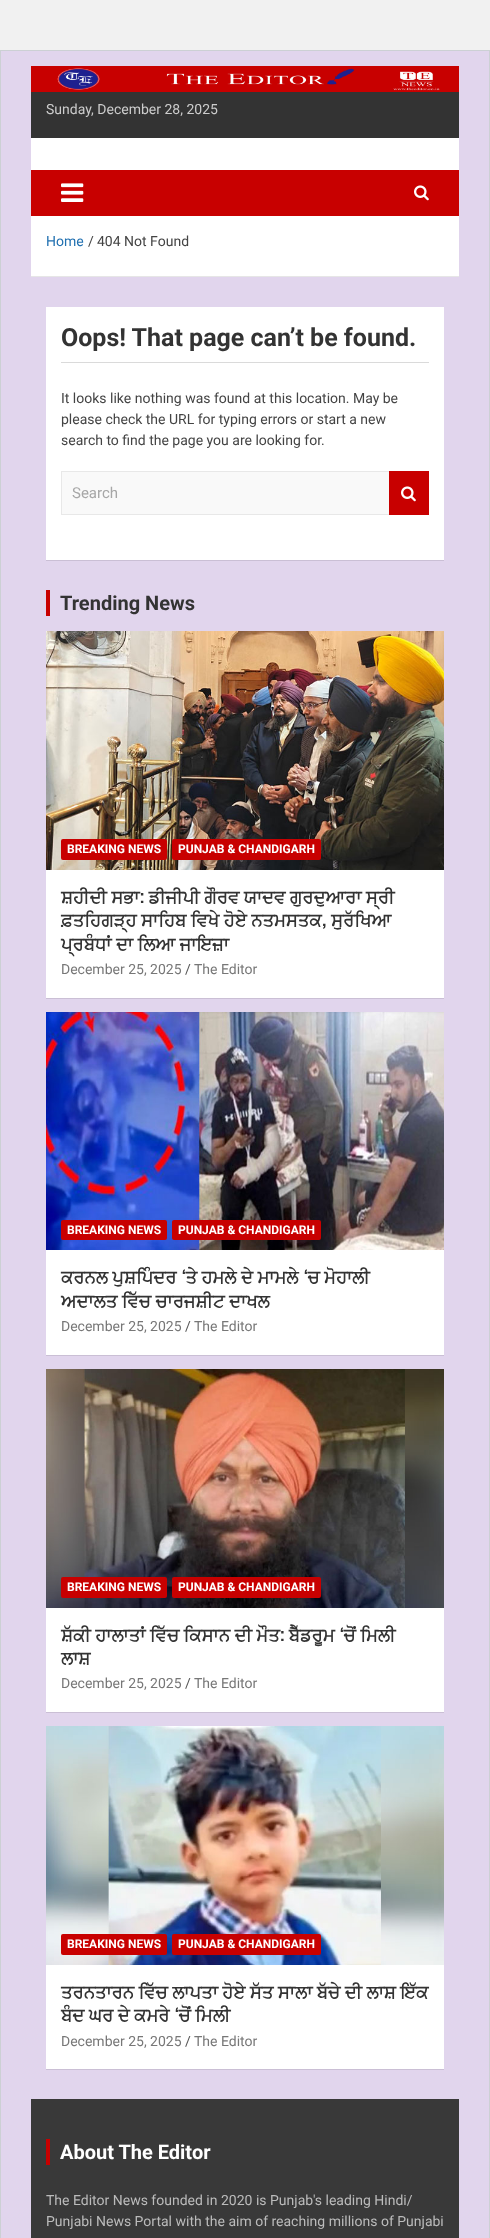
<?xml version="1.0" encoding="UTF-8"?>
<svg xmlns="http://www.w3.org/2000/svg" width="490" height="2238">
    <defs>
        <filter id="blur1" x="-50%" y="-200%" width="200%" height="500%"><feGaussianBlur stdDeviation="0.5"/></filter>
    </defs>
    <rect width="100%" height="100%" fill="#F1F1F1"/>
    <rect x="0.5" y="50.5" width="489" height="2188" fill="#E1D5ED" stroke="#CCD0D4"/>
    <image x="31" y="66" width="428" height="26" href="img_01.png"/>
    <rect x="31" y="92" width="428" height="46" fill="#333333"/>
    <text x="46" y="114" font-family="Roboto" font-size="14" fill="#CCCCCC">Sunday, December 28, 2025</text>
    <rect x="31" y="138" width="428" height="32" fill="#FFFFFF"/>
    <rect x="31" y="170" width="428" height="46" fill="#C80000"/>
    <image x="61" y="183" width="23" height="19" href="img_02.png"/>
    <image x="414" y="185" width="15" height="16" href="img_03.png"/>
    <rect x="31" y="216" width="428" height="60" fill="#FFFFFF"/>
    <rect x="31" y="276" width="428" height="1" fill="#E6E6E6"/>
    <text x="46" y="246" font-family="Roboto" font-size="14" fill="#2271B1">Home</text>
    <text x="88" y="246" font-family="Roboto" font-size="14" fill="#444444">/</text>
    <text x="97" y="246" font-family="Roboto" font-size="14" fill="#444444">404 Not Found</text>
    <rect x="46" y="308" width="398" height="253" fill="#000000" fill-opacity="0.1" filter="url(#blur1)"/>
    <rect x="46" y="307" width="398" height="253" fill="#FFFFFF"/>
    <rect x="61" y="362" width="368" height="1" fill="#DADADA"/>
    <text x="61" y="346" font-family="Roboto" font-size="25" font-weight="700" fill="#333333">Oops! That page can’t be found.</text>
    <text font-family="Roboto" font-size="14" fill="#444444">
        <tspan x="61" y="403">It looks like nothing was found at this location. May be</tspan>
        <tspan x="61" y="424">please check the URL for typing errors or start a new</tspan>
        <tspan x="61" y="445">search to find the page you are looking for.</tspan>
    </text>
    <rect x="62" y="472" width="327" height="42" fill="#F9F9F9"/>
    <path d="M 61 471 H 389 V 472 H 62 Z" fill="#E8E8E8"/>
    <path d="M 389 515 H 61 L 62 514 H 389 Z" fill="#E8E8E8"/>
    <path d="M 61 515 V 471 L 62 472 V 514 Z" fill="#000000" fill-opacity="0.09"/>
    <text x="72" y="498" font-family="Roboto" font-size="15" fill="#A7A7A7">Search</text>
    <rect x="389" y="471" width="40" height="44" fill="#C80000"/>
    <image x="401" y="486" width="15" height="16" href="img_03.png"/>
    <rect x="46" y="590" width="4" height="26" fill="#C80000"/>
    <text x="60" y="610" font-family="Roboto" font-size="20" font-weight="700" fill="#333333">Trending News</text>
    <rect x="46" y="632" width="398" height="367" fill="#000000" fill-opacity="0.1" filter="url(#blur1)"/>
    <rect x="46" y="870" width="398" height="128" fill="#FFFFFF"/>
    <image x="46" y="631" width="398" height="239" href="img_04.png"/>
    <rect x="61" y="839" width="106" height="21" rx="2" fill="#C80000"/>
    <text x="67" y="853" font-family="Roboto" font-size="12" font-weight="700" fill="#FFFFFF">BREAKING NEWS</text>
    <rect x="172" y="839" width="149" height="21" rx="2" fill="#C80000"/>
    <text x="178" y="853" font-family="Roboto" font-size="12" font-weight="700" fill="#FFFFFF">PUNJAB &amp; CHANDIGARH</text>
    <text font-family="FreeSans" font-size="18" font-weight="700" fill="#333333">
        <tspan x="61" y="903">ਸ਼ਹੀਦੀ ਸਭਾ: ਡੀਜੀਪੀ ਗੌਰਵ ਯਾਦਵ ਗੁਰਦੁਆਰਾ ਸ੍ਰੀ</tspan>
        <tspan x="61" y="926">ਫ਼ਤਹਿਗੜ੍ਹ ਸਾਹਿਬ ਵਿਖੇ ਹੋਏ ਨਤਮਸਤਕ, ਸੁਰੱਖਿਆ</tspan>
        <tspan x="61" y="950">ਪ੍ਰਬੰਧਾਂ ਦਾ ਲਿਆ ਜਾਇਜ਼ਾ</tspan>
    </text>
    <text x="61" y="974" font-family="Roboto" font-size="14" fill="#777777">December 25, 2025</text>
    <text x="185" y="974" font-family="Roboto" font-size="14" fill="#555555">/</text>
    <text x="194" y="974" font-family="Roboto" font-size="14" fill="#777777">The Editor</text>
    <rect x="46" y="1013" width="398" height="343" fill="#000000" fill-opacity="0.1" filter="url(#blur1)"/>
    <rect x="46" y="1250" width="398" height="105" fill="#FFFFFF"/>
    <image x="46" y="1012" width="398" height="238" href="img_05.png"/>
    <rect x="61" y="1220" width="106" height="20" rx="2" fill="#C80000"/>
    <text x="67" y="1234" font-family="Roboto" font-size="12" font-weight="700" fill="#FFFFFF">BREAKING NEWS</text>
    <rect x="172" y="1220" width="149" height="20" rx="2" fill="#C80000"/>
    <text x="178" y="1234" font-family="Roboto" font-size="12" font-weight="700" fill="#FFFFFF">PUNJAB &amp; CHANDIGARH</text>
    <text font-family="FreeSans" font-size="18" font-weight="700" fill="#333333">
        <tspan x="61" y="1283">ਕਰਨਲ ਪੁਸ਼ਪਿੰਦਰ ‘ਤੇ ਹਮਲੇ ਦੇ ਮਾਮਲੇ ‘ਚ ਮੋਹਾਲੀ</tspan>
        <tspan x="61" y="1307">ਅਦਾਲਤ ਵਿੱਚ ਚਾਰਜਸ਼ੀਟ ਦਾਖਲ</tspan>
    </text>
    <text x="61" y="1331" font-family="Roboto" font-size="14" fill="#777777">December 25, 2025</text>
    <text x="185" y="1331" font-family="Roboto" font-size="14" fill="#555555">/</text>
    <text x="194" y="1331" font-family="Roboto" font-size="14" fill="#777777">The Editor</text>
    <rect x="46" y="1370" width="398" height="343" fill="#000000" fill-opacity="0.1" filter="url(#blur1)"/>
    <rect x="46" y="1608" width="398" height="104" fill="#FFFFFF"/>
    <image x="46" y="1369" width="398" height="239" href="img_06.png"/>
    <rect x="61" y="1577" width="106" height="21" rx="2" fill="#C80000"/>
    <text x="67" y="1591" font-family="Roboto" font-size="12" font-weight="700" fill="#FFFFFF">BREAKING NEWS</text>
    <rect x="172" y="1577" width="149" height="21" rx="2" fill="#C80000"/>
    <text x="178" y="1591" font-family="Roboto" font-size="12" font-weight="700" fill="#FFFFFF">PUNJAB &amp; CHANDIGARH</text>
    <text font-family="FreeSans" font-size="18" font-weight="700" fill="#333333">
        <tspan x="61" y="1641">ਸ਼ੱਕੀ ਹਾਲਾਤਾਂ ਵਿੱਚ ਕਿਸਾਨ ਦੀ ਮੌਤ: ਬੈੱਡਰੂਮ ‘ਚੋਂ ਮਿਲੀ</tspan>
        <tspan x="61" y="1664">ਲਾਸ਼</tspan>
    </text>
    <text x="61" y="1688" font-family="Roboto" font-size="14" fill="#777777">December 25, 2025</text>
    <text x="185" y="1688" font-family="Roboto" font-size="14" fill="#555555">/</text>
    <text x="194" y="1688" font-family="Roboto" font-size="14" fill="#777777">The Editor</text>
    <rect x="46" y="1727" width="398" height="343" fill="#000000" fill-opacity="0.1" filter="url(#blur1)"/>
    <rect x="46" y="1965" width="398" height="104" fill="#FFFFFF"/>
    <image x="46" y="1726" width="398" height="239" href="img_07.png"/>
    <rect x="61" y="1934" width="106" height="21" rx="2" fill="#C80000"/>
    <text x="67" y="1948" font-family="Roboto" font-size="12" font-weight="700" fill="#FFFFFF">BREAKING NEWS</text>
    <rect x="172" y="1934" width="149" height="21" rx="2" fill="#C80000"/>
    <text x="178" y="1948" font-family="Roboto" font-size="12" font-weight="700" fill="#FFFFFF">PUNJAB &amp; CHANDIGARH</text>
    <text font-family="FreeSans" font-size="18" font-weight="700" fill="#333333">
        <tspan x="61" y="1998">ਤਰਨਤਾਰਨ ਵਿੱਚ ਲਾਪਤਾ ਹੋਏ ਸੱਤ ਸਾਲਾ ਬੱਚੇ ਦੀ ਲਾਸ਼ ਇੱਕ</tspan>
        <tspan x="61" y="2021">ਬੰਦ ਘਰ ਦੇ ਕਮਰੇ ‘ਚੋਂ ਮਿਲੀ</tspan>
    </text>
    <text x="61" y="2046" font-family="Roboto" font-size="14" fill="#777777">December 25, 2025</text>
    <text x="185" y="2046" font-family="Roboto" font-size="14" fill="#555555">/</text>
    <text x="194" y="2046" font-family="Roboto" font-size="14" fill="#777777">The Editor</text>
    <rect x="31" y="2099" width="428" height="139" fill="#393939"/>
    <rect x="46" y="2139" width="4" height="26" fill="#C80000"/>
    <text x="60" y="2159" font-family="Roboto" font-size="20" font-weight="700" fill="#FFFFFF">About The Editor</text>
    <text font-family="Roboto" font-size="14" fill="#BBBBBB">
        <tspan x="46" y="2205">The Editor News founded in 2020 is Punjab's leading Hindi/</tspan>
        <tspan x="46" y="2226">Punjabi News Portal with the aim of reaching millions of Punjabi</tspan>
    </text>
</svg>
